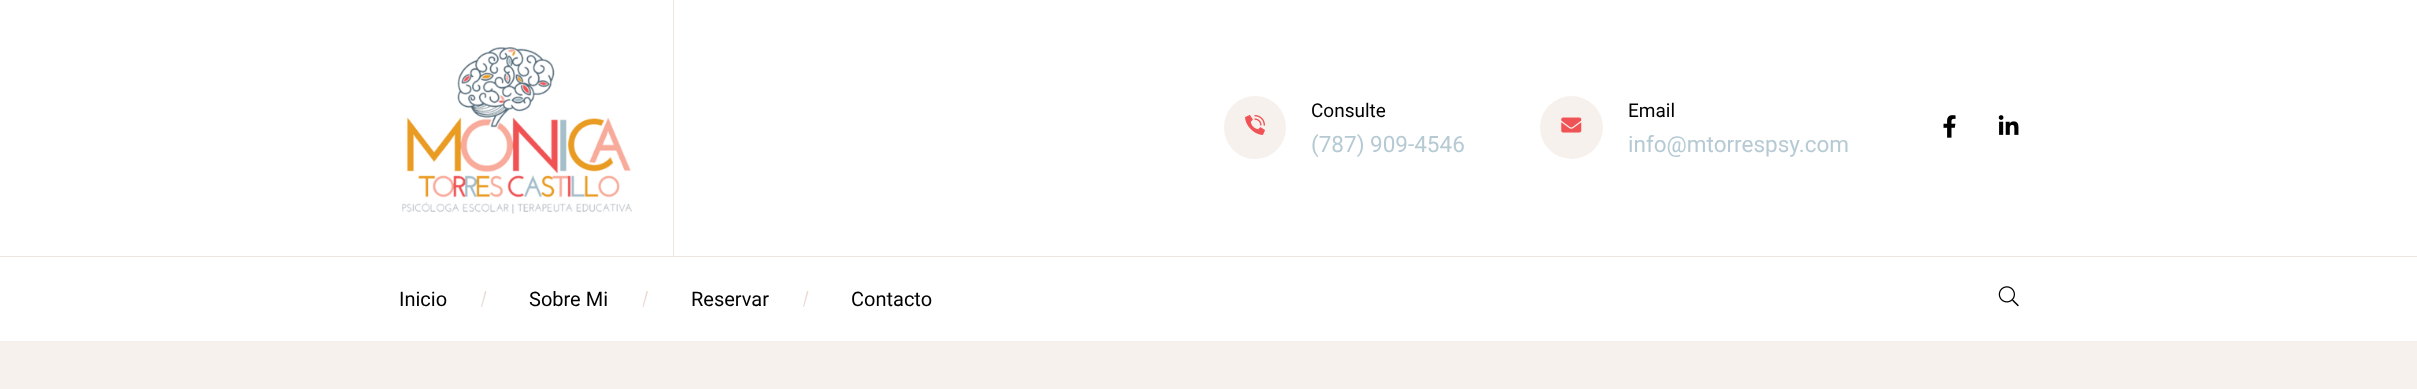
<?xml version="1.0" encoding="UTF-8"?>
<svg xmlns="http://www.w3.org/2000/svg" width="2417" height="389">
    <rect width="100%" height="100%" fill="#FFFFFF"/>
    <rect x="0" y="256" width="2417" height="1" fill="#EDE6E2"/>
    <rect x="673" y="0" width="1" height="256" fill="#EDE6E2"/>
    <image x="402" y="47" width="230" height="167" href="img_01.png"/>
    <rect x="1224" y="96" width="62" height="63" rx="31" fill="#F7F1EE"/>
    <image x="1245" y="115" width="20" height="20" href="img_02.png"/>
    <text x="1311" y="117" font-family="Roboto" font-size="19" fill="#000000">Consulte</text>
    <text x="1311" y="152" font-family="Roboto" font-size="22.5" fill="#B6CAD4">(787) 909-4546</text>
    <circle cx="1571.5" cy="127.5" r="31.5" fill="#F7F1EE"/>
    <image x="1561" y="117" width="21" height="16" href="img_03.png"/>
    <text x="1628" y="117" font-family="Roboto" font-size="19" fill="#000000">Email</text>
    <text x="1628" y="152" font-family="Roboto" font-size="22.5" fill="#B6CAD4">info@mtorrespsy.com</text>
    <image x="1943" y="115" width="13" height="23" href="img_04.png"/>
    <image x="1998" y="115" width="21" height="20" href="img_05.png"/>
    <text x="399" y="306" font-family="Roboto" font-size="20" fill="#000000">Inicio</text>
    <path d="M 485 291 L 486.5 291.5 L 482 307 H 481 Z" fill="#EBD8D1"/>
    <text x="529" y="306" font-family="Roboto" font-size="20" fill="#000000">Sobre Mi</text>
    <path d="M 646.5 291 L 648 291.5 L 643.5 307 H 642.5 Z" fill="#EBD8D1"/>
    <text x="691" y="306" font-family="Roboto" font-size="20" fill="#000000">Reservar</text>
    <path d="M 807 291 L 808.5 291.5 L 804 307 H 803 Z" fill="#EBD8D1"/>
    <text x="851" y="306" font-family="Roboto" font-size="20" fill="#000000">Contacto</text>
    <image x="1998" y="286" width="21" height="21" href="img_06.png"/>
    <rect x="0" y="341" width="2417" height="48" fill="#F7F1EE"/>
</svg>
